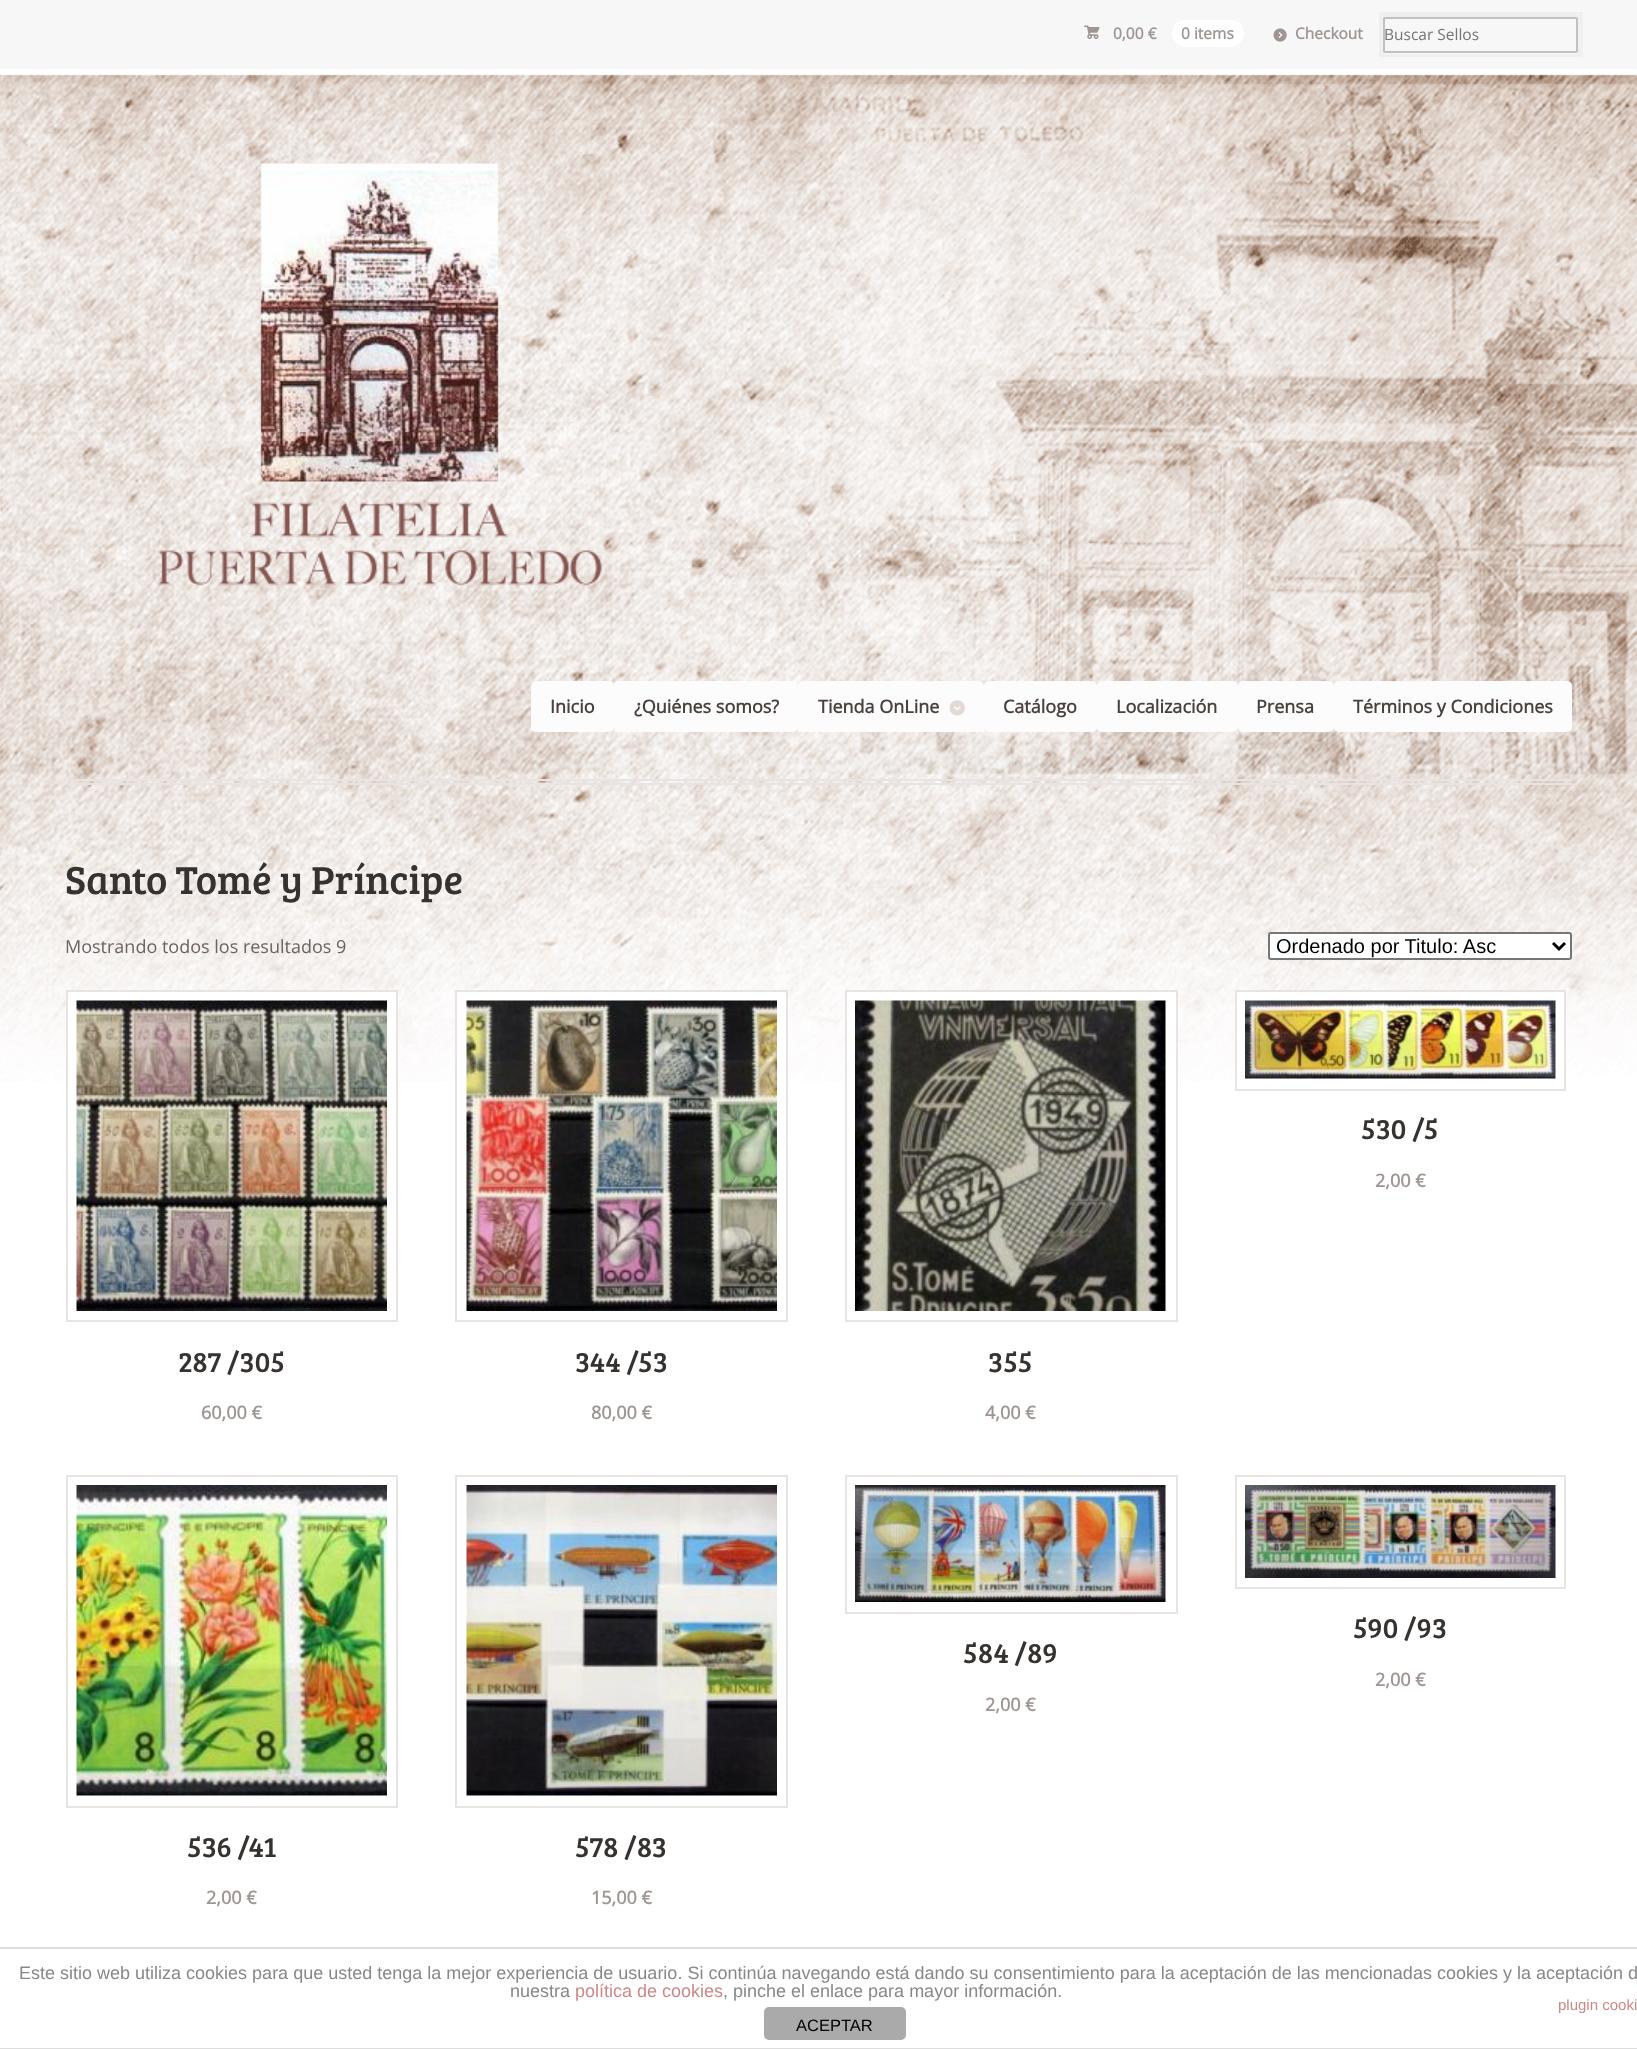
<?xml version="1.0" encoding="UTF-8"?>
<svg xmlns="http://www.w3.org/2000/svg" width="1637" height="2049">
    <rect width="100%" height="100%" fill="#FFFFFF"/>
    <image x="0" y="74" width="1637" height="1008" href="img_01.png"/>
    <rect x="0" y="0" width="1637" height="69" fill="#F7F7F7"/>
    <text x="1084" y="39" font-family="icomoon" font-size="15.5" fill="#9F9693">£</text>
    <text x="1113" y="39" font-family="Open Sans" font-size="15.5" font-weight="700" fill="#9F9693">0,00 €</text>
    <rect x="1172" y="20" width="72" height="27" rx="13.5" fill="#FFFFFF"/>
    <text x="1181" y="39" font-family="Open Sans" font-size="15.5" font-weight="700" fill="#9F9693">0 items</text>
    <image x="1273" y="28" width="14" height="14" href="img_02.png"/>
    <text x="1295" y="39" font-family="Open Sans" font-size="15.5" font-weight="700" fill="#9F9693">Checkout</text>
    <path d="M 1383 51 V 52 C 1383 53 1384 54 1385 54 H 1576 C 1577 54 1578 53 1578 52 V 51 C 1578 52 1577 52 1576 52 H 1385 C 1384 52 1383 52 1383 51 Z" fill="#FFFFFF"/>
    <rect x="1381.5" y="14.5" width="199" height="40" fill="none" stroke="#000000" stroke-opacity="0.03" stroke-width="5"/>
    <rect x="1384" y="18" width="193" height="34" rx="1" fill="#F7F7F7" stroke="#C4C0BF" stroke-width="2"/>
    <text x="1384" y="40" font-family="Open Sans" font-size="15.5" fill="#757575">Buscar Sellos</text>
    <rect x="66" y="779" width="1506" height="2" fill="#E8E4E3"/>
    <rect x="66" y="783" width="1506" height="2" fill="#E8E4E3"/>
    <image x="157" y="163" width="445" height="423" href="img_03.png"/>
    <rect x="532" y="682" width="81" height="49" rx="4" fill="#FCFCFC" stroke="#FCFCFC" stroke-width="2"/>
    <text x="550" y="713" font-family="Open Sans" font-size="18" font-weight="700" fill="#4A413E">Inicio</text>
    <rect x="615" y="682" width="182" height="49" rx="4" fill="#FCFCFC" stroke="#FCFCFC" stroke-width="2"/>
    <text x="634" y="713" font-family="Open Sans" font-size="18" font-weight="700" fill="#4A413E">¿Quiénes somos?</text>
    <path d="M 803 682 H 979 C 981 682 983 684 983 686 V 731 H 799 V 686 C 799 684 801 682 803 682 Z" fill="#FCFCFC" stroke="#FCFCFC" stroke-width="2"/>
    <text x="818" y="713" font-family="Open Sans" font-size="18" font-weight="700" fill="#4A413E">Tienda OnLine</text>
    <image x="949" y="700" width="16" height="16" href="img_04.png"/>
    <rect x="985" y="682" width="111" height="49" rx="4" fill="#FCFCFC" stroke="#FCFCFC" stroke-width="2"/>
    <text x="1003" y="713" font-family="Open Sans" font-size="18" font-weight="700" fill="#4A413E">Catálogo</text>
    <rect x="1098" y="682" width="139" height="49" rx="4" fill="#FCFCFC" stroke="#FCFCFC" stroke-width="2"/>
    <text x="1116" y="713" font-family="Open Sans" font-size="18" font-weight="700" fill="#4A413E">Localización</text>
    <rect x="1239" y="682" width="94" height="49" rx="4" fill="#FCFCFC" stroke="#FCFCFC" stroke-width="2"/>
    <text x="1256" y="713" font-family="Open Sans" font-size="18" font-weight="700" fill="#4A413E">Prensa</text>
    <rect x="1335" y="682" width="236" height="49" rx="4" fill="#FCFCFC" stroke="#FCFCFC" stroke-width="2"/>
    <text x="1353" y="713" font-family="Open Sans" font-size="18" font-weight="700" fill="#4A413E">Términos y Condiciones</text>
    <text x="65" y="894" font-family="Bree Serif" font-size="40.4" fill="#363230">Santo Tomé y Príncipe</text>
    <text x="65" y="953" font-family="Open Sans" font-size="18" fill="#6C6360">Mostrando todos los resultados 9</text>
    <rect x="1269" y="933" width="302" height="26" rx="2" fill="#FFFFFF" stroke="#767676" stroke-width="2"/>
    <path d="M 1553 943 L 1559 949 L 1565 943" fill="none" stroke="#000000" stroke-width="3"/>
    <text x="1276" y="953" font-family="Liberation Sans" font-size="20" fill="#000000">Ordenado por Titulo: Asc</text>
    <rect x="1237" y="992" width="327" height="90" fill="#FFFFFF"/>
    <rect x="1236" y="991" width="329" height="99" fill="none" stroke="#E8E4E3" stroke-width="2"/>
    <image x="1245" y="1000" width="311" height="79" href="img_05.png"/>
    <text x="1361" y="1139" font-family="Bree Serif" font-size="29" fill="#363230">530 /5</text>
    <text x="1375" y="1187" font-family="Open Sans" font-size="18" font-weight="700" fill="#9F9693">2,00 €</text>
    <rect x="68" y="992" width="328" height="90" fill="#FFFFFF"/>
    <rect x="67" y="991" width="330" height="330" fill="none" stroke="#E8E4E3" stroke-width="2"/>
    <image x="76" y="1000" width="311" height="311" href="img_06.png"/>
    <text x="178" y="1372" font-family="Bree Serif" font-size="29" fill="#363230">287 /305</text>
    <text x="201" y="1419" font-family="Open Sans" font-size="18" font-weight="700" fill="#9F9693">60,00 €</text>
    <rect x="457" y="992" width="329" height="90" fill="#FFFFFF"/>
    <rect x="456" y="991" width="331" height="330" fill="none" stroke="#E8E4E3" stroke-width="2"/>
    <image x="466" y="1000" width="311" height="311" href="img_07.png"/>
    <text x="575" y="1372" font-family="Bree Serif" font-size="29" fill="#363230">344 /53</text>
    <text x="591" y="1419" font-family="Open Sans" font-size="18" font-weight="700" fill="#9F9693">80,00 €</text>
    <rect x="847" y="992" width="329" height="90" fill="#FFFFFF"/>
    <rect x="846" y="991" width="331" height="330" fill="none" stroke="#E8E4E3" stroke-width="2"/>
    <image x="855" y="1000" width="311" height="311" href="img_08.png"/>
    <text x="988" y="1372" font-family="Bree Serif" font-size="29" fill="#363230">355</text>
    <text x="985" y="1419" font-family="Open Sans" font-size="18" font-weight="700" fill="#9F9693">4,00 €</text>
    <rect x="846" y="1476" width="331" height="137" fill="none" stroke="#E8E4E3" stroke-width="2"/>
    <image x="855" y="1485" width="311" height="117" href="img_09.png"/>
    <text x="963" y="1663" font-family="Bree Serif" font-size="29" fill="#363230">584 /89</text>
    <text x="985" y="1711" font-family="Open Sans" font-size="18" font-weight="700" fill="#9F9693">2,00 €</text>
    <rect x="1236" y="1476" width="329" height="112" fill="none" stroke="#E8E4E3" stroke-width="2"/>
    <image x="1245" y="1485" width="311" height="93" href="img_10.png"/>
    <text x="1353" y="1638" font-family="Bree Serif" font-size="29" fill="#363230">590 /93</text>
    <text x="1375" y="1686" font-family="Open Sans" font-size="18" font-weight="700" fill="#9F9693">2,00 €</text>
    <rect x="67" y="1476" width="330" height="331" fill="none" stroke="#E8E4E3" stroke-width="2"/>
    <image x="76" y="1485" width="311" height="311" href="img_11.png"/>
    <text x="187" y="1857" font-family="Bree Serif" font-size="29" fill="#363230">536 /41</text>
    <text x="206" y="1904" font-family="Open Sans" font-size="18" font-weight="700" fill="#9F9693">2,00 €</text>
    <rect x="456" y="1476" width="331" height="331" fill="none" stroke="#E8E4E3" stroke-width="2"/>
    <image x="466" y="1485" width="311" height="311" href="img_12.png"/>
    <text x="575" y="1857" font-family="Bree Serif" font-size="29" fill="#363230">578 /83</text>
    <text x="591" y="1904" font-family="Open Sans" font-size="18" font-weight="700" fill="#9F9693">15,00 €</text>
    <rect x="0" y="1947" width="1637" height="2" fill="#DDDDDD"/>
    <rect x="0" y="2048" width="1637" height="1" fill="#DDDDDD"/>
    <text x="19" y="1979" font-family="Liberation Sans" font-size="18" fill="#888888">Este sitio web utiliza cookies para que usted tenga la mejor experiencia de usuario. Si continúa navegando está dando su consentimiento para la aceptación de las mencionadas cookies y la aceptación d</text>
    <text x="510" y="1997" font-family="Liberation Sans" font-size="18" fill="#888888">nuestra</text>
    <text x="575" y="1997" font-family="Liberation Sans" font-size="18" fill="#CC8888">política de cookies</text>
    <text x="723" y="1997" font-family="Liberation Sans" font-size="18" fill="#888888">, pinche el enlace para mayor información.</text>
    <text x="1558" y="2010" font-family="Liberation Sans" font-size="15" fill="#CC8888">plugin cooki</text>
    <rect x="764" y="2007" width="142" height="33" rx="5" fill="#AAAAAA"/>
    <text x="796" y="2031" font-family="Liberation Sans" font-size="16.5" fill="#000000">ACEPTAR</text>
</svg>
